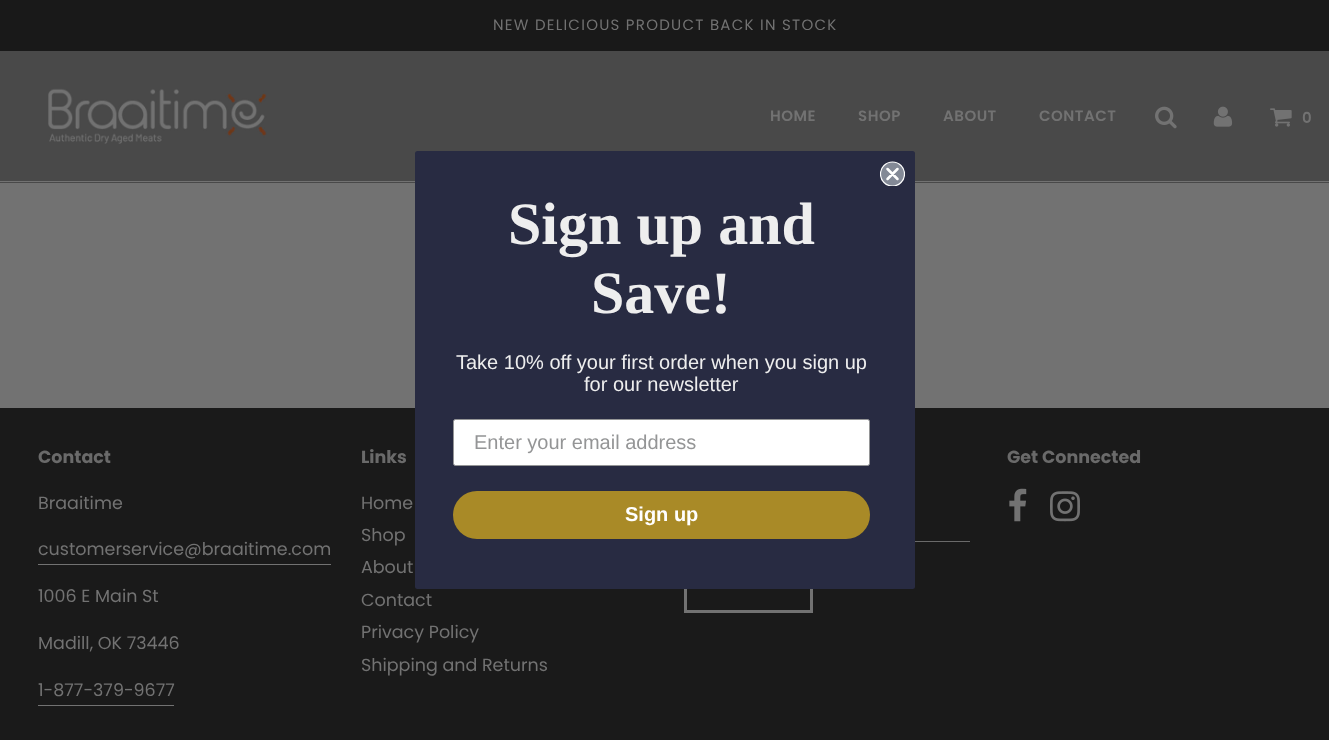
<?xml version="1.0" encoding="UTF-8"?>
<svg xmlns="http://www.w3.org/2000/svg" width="1329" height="740">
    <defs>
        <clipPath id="clip1"><rect x="880" y="161" width="25" height="25"/></clipPath>
    </defs>
    <rect width="100%" height="100%" fill="#727272"/>
    <rect x="0" y="0" width="1329" height="51" fill="#191919"/>
    <text x="493" y="30" font-family="Poppins" font-size="15" letter-spacing="1.25" fill="#727272">NEW DELICIOUS PRODUCT BACK IN STOCK</text>
    <rect x="0" y="51" width="1329" height="132" fill="#494949"/>
    <rect x="0" y="181" width="1329" height="1" fill="#727272"/>
    <image x="48" y="88" width="219" height="56" href="img_01.png"/>
    <text x="770" y="121" font-family="Poppins" font-size="15" font-weight="600" letter-spacing="0.5" fill="#727272">HOME</text>
    <text x="858" y="121" font-family="Poppins" font-size="15" font-weight="600" letter-spacing="0.5" fill="#727272">SHOP</text>
    <text x="943" y="121" font-family="Poppins" font-size="15" font-weight="600" letter-spacing="0.5" fill="#727272">ABOUT</text>
    <text x="1039" y="121" font-family="Poppins" font-size="15" font-weight="600" letter-spacing="0.5" fill="#727272">CONTACT</text>
    <image x="1155" y="106" width="22" height="23" href="img_02.png"/>
    <image x="1213" y="106" width="20" height="21" href="img_03.png"/>
    <image x="1270" y="108" width="22" height="19" href="img_04.png"/>
    <text x="1302" y="123" font-family="Poppins" font-size="15" font-weight="600" fill="#727272">0</text>
    <rect x="0" y="408" width="1329" height="332" fill="#1A1A1A"/>
    <text x="38" y="463" font-family="Poppins" font-size="17.5" font-weight="700" fill="#6A6A6A">Contact</text>
    <text x="38" y="509" font-family="Poppins" font-size="17.5" fill="#727272">Braaitime</text>
    <text x="38" y="555" font-family="Poppins" font-size="17.5" fill="#727272">customerservice@braaitime.com</text>
    <rect x="38" y="564" width="293" height="1" fill="#727272"/>
    <text x="38" y="602" font-family="Poppins" font-size="17.5" fill="#727272">1006 E Main St</text>
    <text x="38" y="649" font-family="Poppins" font-size="17.5" fill="#727272">Madill, OK 73446</text>
    <text x="38" y="696" font-family="Poppins" font-size="17.5" fill="#727272">1-877-379-9677</text>
    <rect x="38" y="705" width="136" height="1" fill="#727272"/>
    <text x="361" y="463" font-family="Poppins" font-size="17.5" font-weight="700" fill="#6A6A6A">Links</text>
    <text font-family="Poppins" font-size="17.5" fill="#727272">
        <tspan x="361" y="509">Home</tspan>
        <tspan x="361" y="541">Shop</tspan>
        <tspan x="361" y="573">About</tspan>
        <tspan x="361" y="606">Contact</tspan>
        <tspan x="361" y="638">Privacy Policy</tspan>
        <tspan x="361" y="671">Shipping and Returns</tspan>
    </text>
    <text x="1007" y="463" font-family="Poppins" font-size="17.5" font-weight="700" fill="#6A6A6A">Get Connected</text>
    <image x="1009" y="488" width="18" height="34" href="img_05.png"/>
    <image x="1050" y="491" width="30" height="31" href="img_06.png"/>
    <rect x="915" y="541" width="55" height="1" fill="#6A6A6A"/>
    <rect x="685.5" y="562.5" width="126" height="49" fill="none" stroke="#727272" stroke-width="3"/>
    <rect x="415" y="151" width="500" height="438" rx="2.5" fill="#282B42"/>
    <circle cx="892.5" cy="174" r="12" fill="#838996"/>
    <g clip-path="url(#clip1)">
        <circle cx="892.5" cy="174" r="12" fill="none" stroke="#FFFFFF" stroke-width="1.2"/>
    </g>
    <path d="M 887.5 169 L 897.5 179 M 887.5 179 L 897.5 169 Z" fill="none" stroke="#FFFFFF" stroke-width="2.5" stroke-linecap="round" stroke-linejoin="round"/>
    <text x="508" y="244" font-family="Liberation Serif" font-size="60" font-weight="700" fill="#EEEEEE">Sign up and</text>
    <text x="591" y="313" font-family="Liberation Serif" font-size="60" font-weight="700" fill="#EEEEEE">Save!</text>
    <text x="456" y="369" font-family="Liberation Sans" font-size="20" fill="#EEEEEE">Take 10% off your first order when you sign up</text>
    <text x="584" y="391" font-family="Liberation Sans" font-size="20" fill="#EEEEEE">for our newsletter</text>
    <rect x="453.5" y="419.5" width="416" height="46" rx="2" fill="#FFFFFF" stroke="#949596"/>
    <text x="474" y="449" font-family="Liberation Sans" font-size="20" fill="#949596">Enter your email address</text>
    <rect x="453" y="491" width="417" height="48" rx="24" fill="#A98A27"/>
    <text x="625" y="521" font-family="Liberation Sans" font-size="20" font-weight="700" fill="#FFFFFF">Sign up</text>
</svg>
